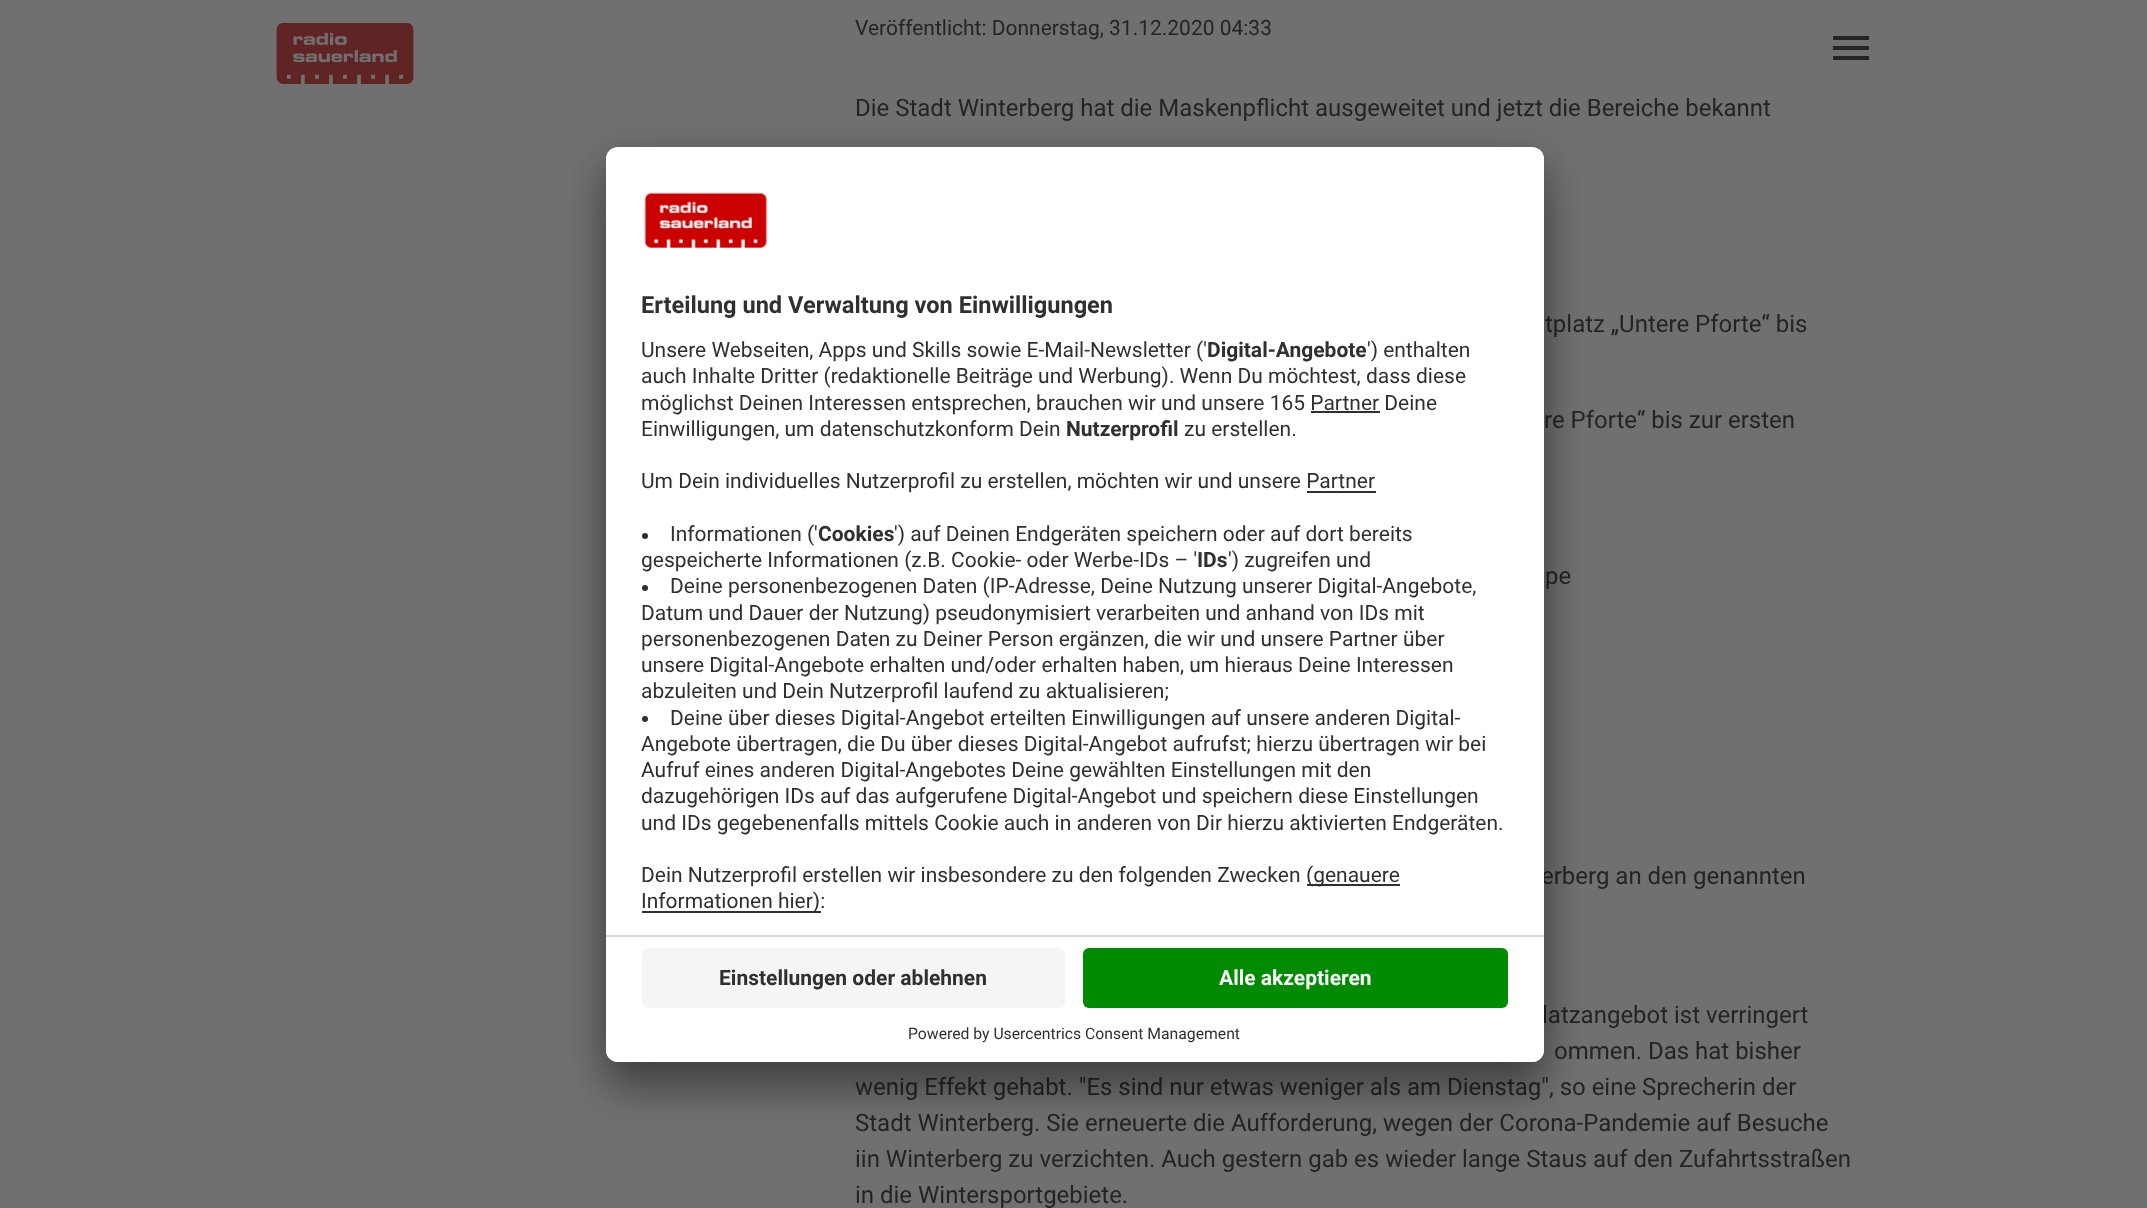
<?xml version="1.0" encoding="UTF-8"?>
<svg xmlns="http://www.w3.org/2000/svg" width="2147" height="1208">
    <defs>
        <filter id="blur1" x="-50%" y="-200%" width="200%" height="500%"><feGaussianBlur stdDeviation="21"/></filter>
        <filter id="blur2" x="-50%" y="-200%" width="200%" height="500%"><feGaussianBlur stdDeviation="19.5"/></filter>
        <clipPath id="clip1"><rect x="606" y="147" width="938" height="915" rx="12"/></clipPath>
        <clipPath id="clip2"><path d="M 618 147 H 1532 C 1538.5 147 1544 152.5 1544 159 V 935 H 606 V 159 C 606 152.5 611.5 147 618 147 Z"/></clipPath>
    </defs>
    <rect width="100%" height="100%" fill="#707070"/>
    <text x="855" y="35" font-family="Roboto" font-size="21" fill="#242424">Veröffentlicht: Donnerstag, 31.12.2020 04:33</text>
    <text x="855" y="116" font-family="Roboto" font-size="24" fill="#242424">Die Stadt Winterberg hat die Maskenpflicht ausgeweitet und jetzt die Bereiche bekannt</text>
    <text x="1545" y="332" font-family="Roboto" font-size="24" fill="#242424">tplatz „Untere Pforte“ bis</text>
    <text x="1544" y="428" font-family="Roboto" font-size="24" fill="#242424">re Pforte“ bis zur ersten</text>
    <text x="1545" y="584" font-family="Roboto" font-size="24" fill="#242424">pe</text>
    <text x="1541" y="884" font-family="Roboto" font-size="24" fill="#242424">erberg an den genannten</text>
    <text x="1542" y="1023" font-family="Roboto" font-size="24" fill="#242424">latzangebot ist verringert</text>
    <text x="1554" y="1059" font-family="Roboto" font-size="24" fill="#242424">ommen. Das hat bisher</text>
    <text font-family="Roboto" font-size="24" fill="#242424">
        <tspan x="855" y="1095">wenig Effekt gehabt. "Es sind nur etwas weniger als am Dienstag", so eine Sprecherin der</tspan>
        <tspan x="855" y="1131">Stadt Winterberg. Sie erneuerte die Aufforderung, wegen der Corona-Pandemie auf Besuche</tspan>
        <tspan x="855" y="1167">iin Winterberg zu verzichten. Auch gestern gab es wieder lange Staus auf den Zufahrtsstraßen</tspan>
        <tspan x="855" y="1203">in die Wintersportgebiete.</tspan>
    </text>
    <image x="276" y="22" width="138" height="62" href="img_01.png"/>
    <path d="M 1833 60 V 56 H 1869 V 60 Z M 1833 50 V 46 H 1869 V 50 Z M 1833 40 V 36 H 1869 V 40 Z" fill="#242424"/>
    <rect x="606" y="177" width="938" height="915" rx="12" fill="#000000" fill-opacity="0.3" filter="url(#blur1)"/>
    <rect x="606" y="155" width="938" height="915" rx="12" fill="#000000" fill-opacity="0.22" filter="url(#blur2)"/>
    <rect x="606" y="147" width="938" height="915" rx="12" fill="#FFFFFF"/>
    <g clip-path="url(#clip1)">
        <g clip-path="url(#clip2)">
            <rect x="606" y="149" width="938" height="786" fill="#FFFFFF"/>
        </g>
    </g>
    <image x="644" y="192" width="124" height="56" href="img_02.png"/>
    <text x="641" y="313" font-family="Roboto" font-size="23.6" font-weight="700" fill="#303030">Erteilung und Verwaltung von Einwilligungen</text>
    <text x="641" y="357" font-family="Roboto" font-size="21" fill="#303030">Unsere Webseiten, Apps und Skills sowie E-Mail-Newsletter ('</text>
    <text x="1207" y="357" font-family="Roboto" font-size="21" font-weight="700" fill="#303030">Digital-Angebote</text>
    <text x="1367" y="357" font-family="Roboto" font-size="21" fill="#303030">') enthalten</text>
    <text font-family="Roboto" font-size="21" fill="#303030">
        <tspan x="641" y="383">auch Inhalte Dritter (redaktionelle Beiträge und Werbung). Wenn Du möchtest, dass diese</tspan>
        <tspan x="641" y="410">möglichst Deinen Interessen entsprechen, brauchen wir und unsere 165 Partner Deine</tspan>
    </text>
    <rect x="1311" y="411" width="69" height="2" fill="#303030"/>
    <text x="641" y="436" font-family="Roboto" font-size="21" fill="#303030">Einwilligungen, um datenschutzkonform Dein</text>
    <text x="1066" y="436" font-family="Roboto" font-size="21" font-weight="700" fill="#303030">Nutzerprofil</text>
    <text x="1184" y="436" font-family="Roboto" font-size="21" fill="#303030">zu erstellen.</text>
    <text x="641" y="488" font-family="Roboto" font-size="21" fill="#303030">Um Dein individuelles Nutzerprofil zu erstellen, möchten wir und unsere Partner</text>
    <rect x="1307" y="491" width="69" height="2" fill="#303030"/>
    <circle cx="645" cy="536" r="3" fill="#303030"/>
    <text x="670" y="541" font-family="Roboto" font-size="21" fill="#303030">Informationen ('</text>
    <text x="818" y="541" font-family="Roboto" font-size="21" font-weight="700" fill="#303030">Cookies</text>
    <text x="894" y="541" font-family="Roboto" font-size="21" fill="#303030">') auf Deinen Endgeräten speichern oder auf dort bereits</text>
    <text x="641" y="567" font-family="Roboto" font-size="21" fill="#303030">gespeicherte Informationen (z.B. Cookie- oder Werbe-IDs – '</text>
    <text x="1197" y="567" font-family="Roboto" font-size="21" font-weight="700" fill="#303030">IDs</text>
    <text x="1228" y="567" font-family="Roboto" font-size="21" fill="#303030">') zugreifen und</text>
    <circle cx="645" cy="588" r="3" fill="#303030"/>
    <text x="670" y="593" font-family="Roboto" font-size="21" fill="#303030">Deine personenbezogenen Daten (IP-Adresse, Deine Nutzung unserer Digital-Angebote,</text>
    <text font-family="Roboto" font-size="21" fill="#303030">
        <tspan x="641" y="620">Datum und Dauer der Nutzung) pseudonymisiert verarbeiten und anhand von IDs mit</tspan>
        <tspan x="641" y="646">personenbezogenen Daten zu Deiner Person ergänzen, die wir und unsere Partner über</tspan>
        <tspan x="641" y="672">unsere Digital-Angebote erhalten und/oder erhalten haben, um hieraus Deine Interessen</tspan>
        <tspan x="641" y="698">abzuleiten und Dein Nutzerprofil laufend zu aktualisieren;</tspan>
    </text>
    <circle cx="645" cy="719" r="3" fill="#303030"/>
    <text x="670" y="725" font-family="Roboto" font-size="21" fill="#303030">Deine über dieses Digital-Angebot erteilten Einwilligungen auf unsere anderen Digital-</text>
    <text font-family="Roboto" font-size="21" fill="#303030">
        <tspan x="641" y="751">Angebote übertragen, die Du über dieses Digital-Angebot aufrufst; hierzu übertragen wir bei</tspan>
        <tspan x="641" y="777">Aufruf eines anderen Digital-Angebotes Deine gewählten Einstellungen mit den</tspan>
        <tspan x="641" y="803">dazugehörigen IDs auf das aufgerufene Digital-Angebot und speichern diese Einstellungen</tspan>
        <tspan x="641" y="830">und IDs gegebenenfalls mittels Cookie auch in anderen von Dir hierzu aktivierten Endgeräten.</tspan>
    </text>
    <text x="641" y="882" font-family="Roboto" font-size="21" fill="#303030">Dein Nutzerprofil erstellen wir insbesondere zu den folgenden Zwecken</text>
    <rect x="1307" y="884" width="93" height="2" fill="#303030"/>
    <text x="1306" y="882" font-family="Roboto" font-size="21" fill="#303030">(genauere</text>
    <rect x="642" y="911" width="179" height="2" fill="#303030"/>
    <text x="641" y="908" font-family="Roboto" font-size="21" fill="#303030">Informationen hier):</text>
    <path d="M 606 935 H 1544 V 1050 C 1544 1056.5 1538.5 1062 1532 1062 H 618 C 611.5 1062 606 1056.5 606 1050 Z" fill="#FFFFFF"/>
    <rect x="606" y="935" width="938" height="2" fill="#DDDDDD"/>
    <rect x="642" y="948" width="423" height="60" rx="6" fill="#F5F5F5"/>
    <text x="719" y="985" font-family="Roboto" font-size="21" font-weight="700" fill="#303030">Einstellungen oder ablehnen</text>
    <rect x="1083" y="948" width="425" height="60" rx="6" fill="#008B02"/>
    <text x="1219" y="985" font-family="Roboto" font-size="21" font-weight="700" fill="#FAFAFA">Alle akzeptieren</text>
    <text x="908" y="1039" font-family="Roboto" font-size="15.75" fill="#303030">Powered by Usercentrics Consent Management</text>
</svg>
